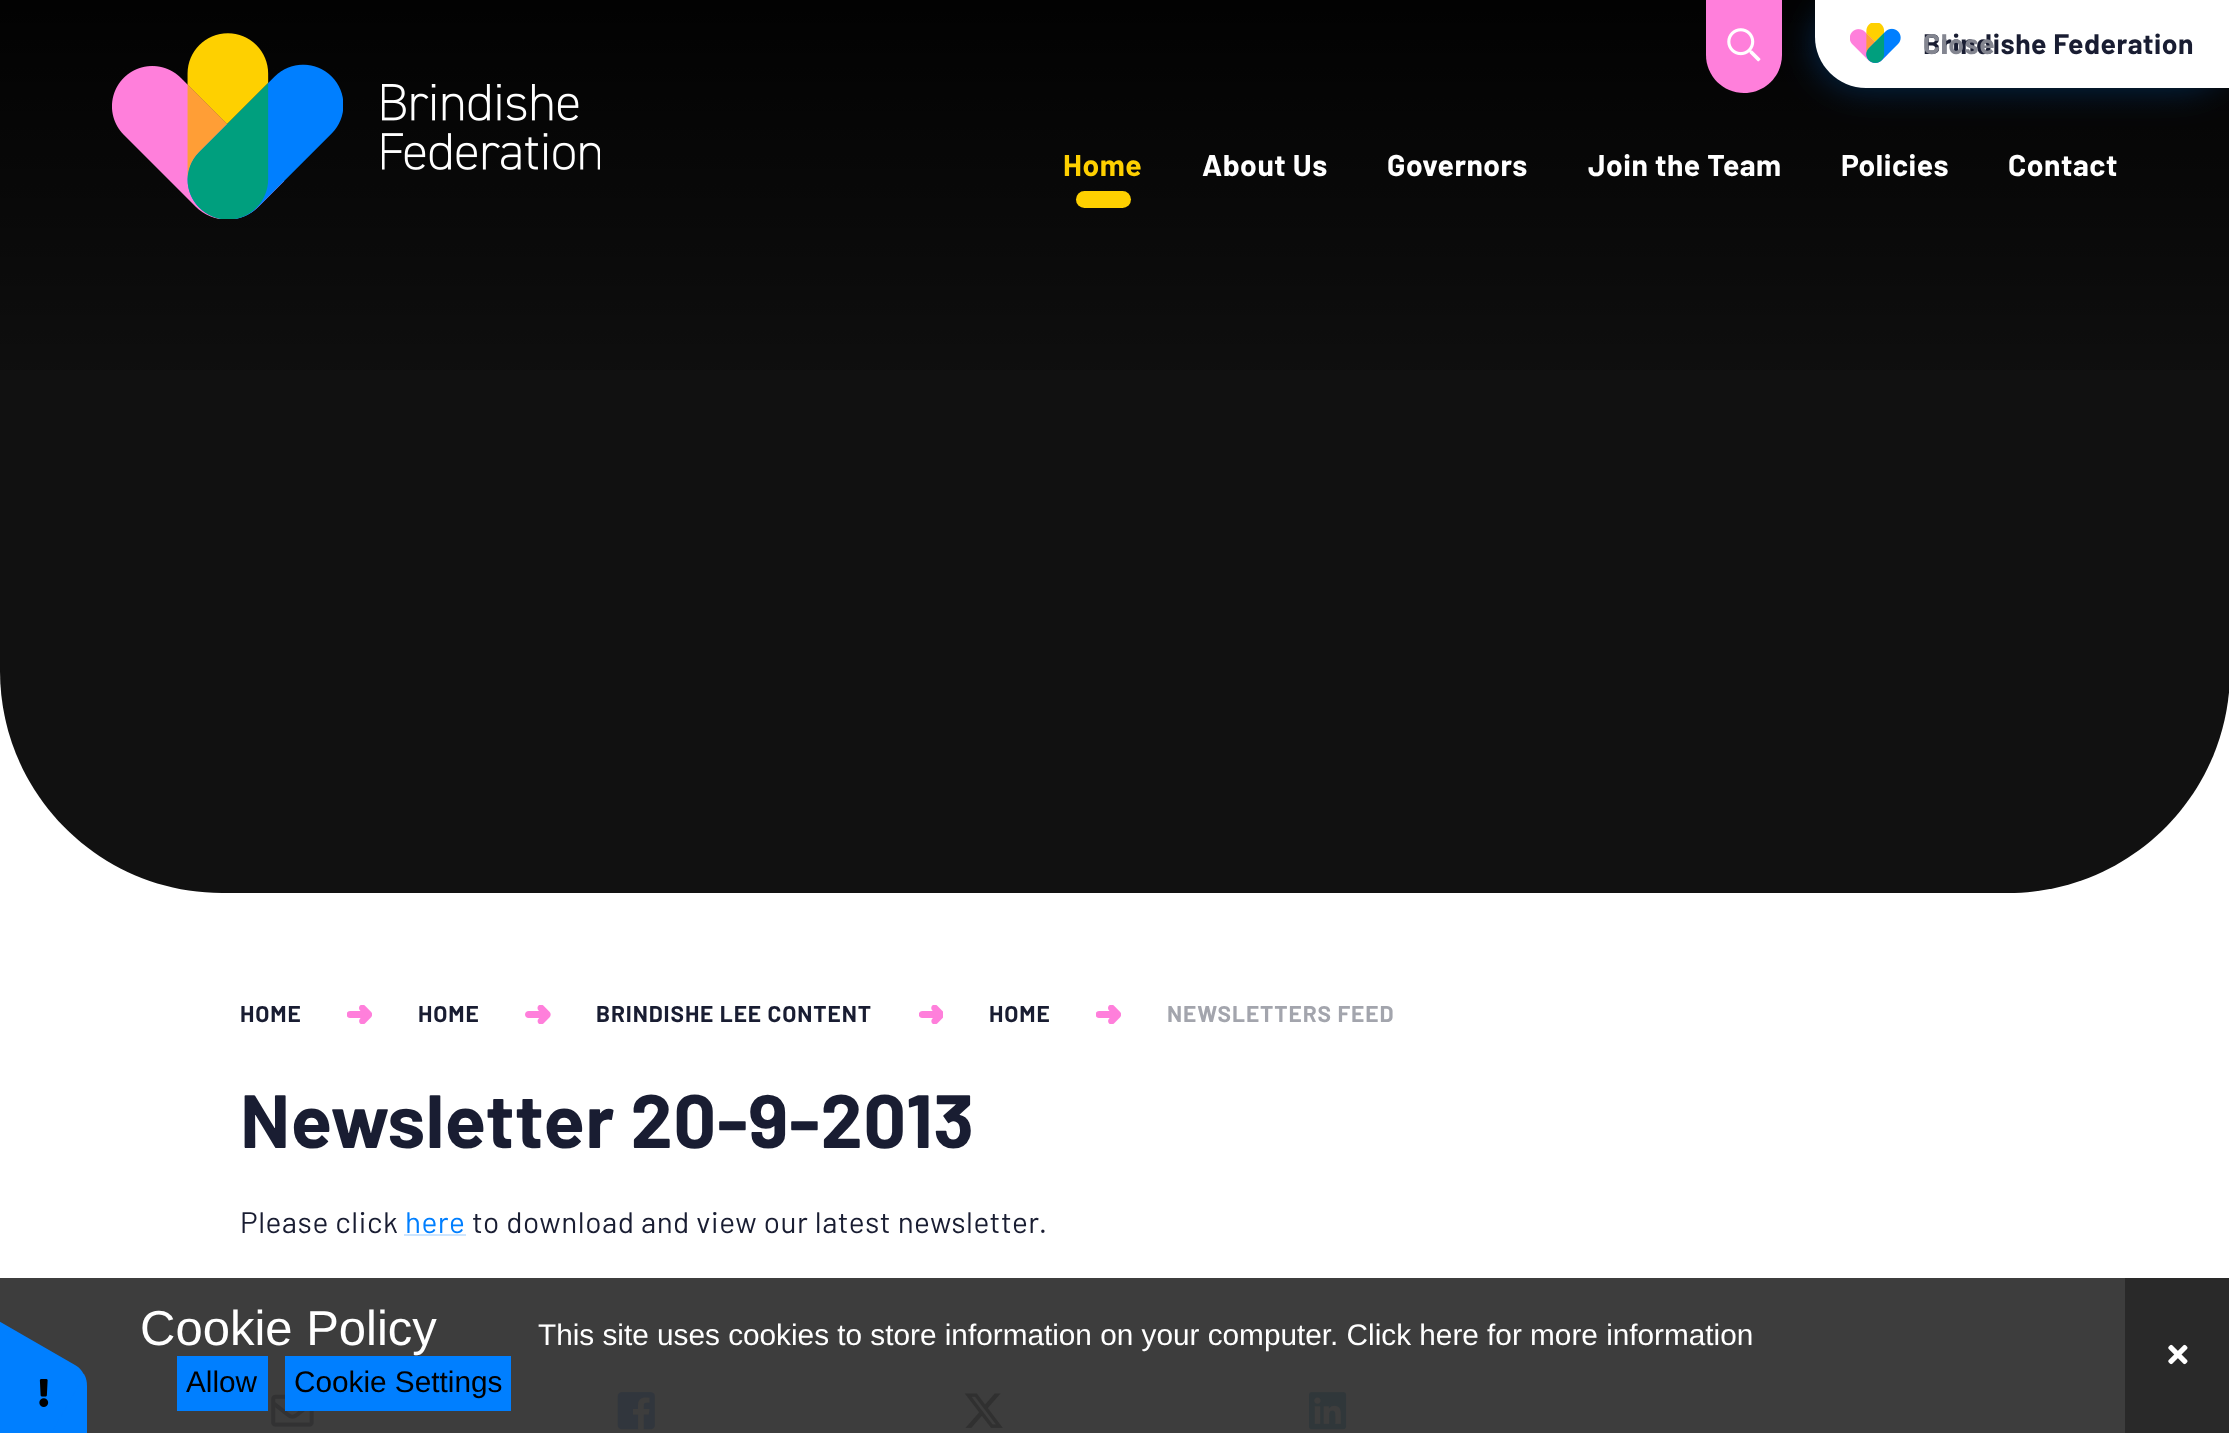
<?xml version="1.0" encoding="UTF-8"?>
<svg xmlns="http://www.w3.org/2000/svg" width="2229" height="1433">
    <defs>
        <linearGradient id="g1" gradientUnits="userSpaceOnUse" x1="1115" y1="0" x2="1115" y2="893"><stop offset="0" stop-color="#000000" stop-opacity="0.9"/><stop offset="0.5" stop-color="#000000" stop-opacity="0"/><stop offset="1" stop-color="#000000" stop-opacity="0"/></linearGradient>
        <filter id="blur1" x="-50%" y="-200%" width="200%" height="500%"><feGaussianBlur stdDeviation="17.5"/></filter>
    </defs>
    <rect width="100%" height="100%" fill="#FFFFFF"/>
    <rect x="0" y="1278" width="2125" height="155" fill="#3D3D3D"/>
    <path d="M 0 0 H 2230 V 671 C 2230 793.5 2130.5 893 2008 893 H 222 C 99.5 893 0 793.5 0 671 Z" fill="#111111"/>
    <rect x="0" y="0" width="2229" height="370" fill="url(#g1)"/>
    <rect x="1815" y="0" width="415" height="88" rx="51" fill="#007FFF" fill-opacity="0.3" filter="url(#blur1)"/>
    <path d="M 1706 0 H 1782 V 55 C 1782 76 1765 93 1744 93 C 1723 93 1706 76 1706 55 Z" fill="#FF7FDB"/>
    <image x="1727" y="28" width="34" height="34" href="img_01.png"/>
    <path d="M 1815 0 H 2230 V 88 H 1866 C 1838 88 1815 65 1815 37 Z" fill="#FFFFFF"/>
    <image x="1850" y="23" width="51" height="40" href="img_02.png"/>
    <text x="1923" y="54" font-family="Barlow" font-size="28.25" font-weight="700" letter-spacing="0.55" fill="#191D32">Brindishe Federation</text>
    <text x="1923" y="54" font-family="Barlow" font-size="28.25" font-weight="700" letter-spacing="0.55" fill="#838590">Close</text>
    <image x="112" y="33" width="231" height="186" href="img_03.png"/>
    <image x="382" y="84" width="218" height="86" href="img_04.png"/>
    <text x="1063" y="176" font-family="Barlow" font-size="30" font-weight="700" letter-spacing="0.55" fill="#FED000">Home</text>
    <rect x="1076" y="191" width="55" height="17" rx="8.5" fill="#FED000"/>
    <text x="1202" y="176" font-family="Barlow" font-size="30" font-weight="700" letter-spacing="0.55" fill="#FFFFFF">About Us</text>
    <text x="1387" y="176" font-family="Barlow" font-size="30" font-weight="700" letter-spacing="0.55" fill="#FFFFFF">Governors</text>
    <text x="1588" y="176" font-family="Barlow" font-size="30" font-weight="700" letter-spacing="0.55" fill="#FFFFFF">Join the Team</text>
    <text x="1841" y="176" font-family="Barlow" font-size="30" font-weight="700" letter-spacing="0.55" fill="#FFFFFF">Policies</text>
    <text x="2008" y="176" font-family="Barlow" font-size="30" font-weight="700" letter-spacing="0.55" fill="#FFFFFF">Contact</text>
    <text x="240" y="1022" font-family="Barlow" font-size="22.75" font-weight="700" letter-spacing="0.9" fill="#191D32">HOME</text>
    <image x="347" y="1005" width="25" height="19" href="img_05.png"/>
    <text x="418" y="1022" font-family="Barlow" font-size="22.75" font-weight="700" letter-spacing="0.9" fill="#191D32">HOME</text>
    <image x="525" y="1005" width="26" height="19" href="img_06.png"/>
    <text x="596" y="1022" font-family="Barlow" font-size="22.75" font-weight="700" letter-spacing="0.9" fill="#191D32">BRINDISHE LEE CONTENT</text>
    <image x="919" y="1005" width="24" height="19" href="img_07.png"/>
    <text x="989" y="1022" font-family="Barlow" font-size="22.75" font-weight="700" letter-spacing="0.9" fill="#191D32">HOME</text>
    <image x="1096" y="1005" width="25" height="19" href="img_05.png"/>
    <text x="1167" y="1022" font-family="Barlow" font-size="22.75" font-weight="700" letter-spacing="0.9" fill="#A3A5AD">NEWSLETTERS FEED</text>
    <text x="240" y="1148" font-family="Barlow" font-size="75.5" font-weight="700" letter-spacing="0.55" fill="#191D32">Newsletter 20-9-2013</text>
    <text x="240" y="1233" font-family="Barlow" font-size="29.75" letter-spacing="0.55" fill="#191D32">Please click</text>
    <text x="405" y="1233" font-family="Barlow" font-size="29.75" letter-spacing="0.55" fill="#007FFF">here</text>
    <rect x="404" y="1234" width="62" height="2" fill="#CCE5FF"/>
    <text x="472" y="1233" font-family="Barlow" font-size="29.75" letter-spacing="0.55" fill="#191D32">to download and view our latest newsletter.</text>
    <image x="271" y="1394" width="43" height="33" href="img_08.png"/>
    <image x="617" y="1392" width="38" height="38" href="img_09.png"/>
    <image x="964" y="1393" width="39" height="35" href="img_10.png"/>
    <image x="1309" y="1392" width="38" height="38" href="img_11.png"/>
    <path d="M 87 1386 V 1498 C 87 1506 84 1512 80 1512 H -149 C -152 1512 -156 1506 -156 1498 V 1386 C -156 1378 -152 1372 -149 1372 H 80 C 84 1372 87 1378 87 1386 Z" fill="#007FFF"/>
    <path d="M -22 1309 L 75 1365 C 82 1369 85 1375 83 1378 L -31 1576 C -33 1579 -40 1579 -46 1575 L -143 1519 C -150 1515 -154 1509 -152 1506 L -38 1308 C -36 1305 -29 1305 -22 1309 Z" fill="#007FFF"/>
    <image x="39" y="1379" width="10" height="28" href="img_12.png"/>
    <text x="140" y="1345" font-family="Liberation Sans" font-size="49" fill="#FFFFFF">Cookie Policy</text>
    <text x="538" y="1345" font-family="Liberation Sans" font-size="29.75" fill="#FFFFFF">This site uses cookies to store information on your computer. Click here for more information</text>
    <rect x="177" y="1356" width="91" height="55" fill="#007FFF"/>
    <text x="186" y="1392" font-family="Liberation Sans" font-size="29.75" fill="#000000">Allow</text>
    <rect x="285" y="1356" width="226" height="55" fill="#007FFF"/>
    <text x="294" y="1392" font-family="Liberation Sans" font-size="29.75" fill="#000000">Cookie Settings</text>
    <rect x="2125" y="1278" width="104" height="155" fill="#292929"/>
    <image x="2168" y="1344" width="20" height="21" href="img_13.png"/>
</svg>
